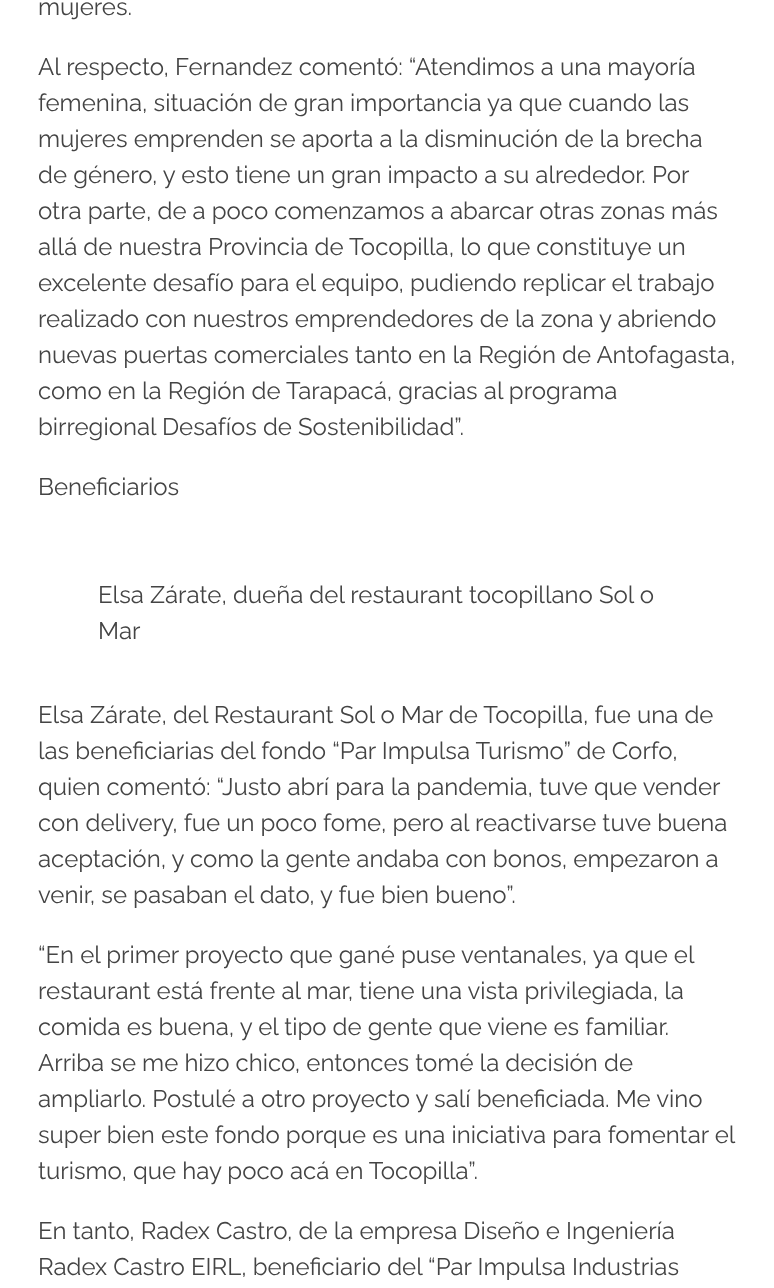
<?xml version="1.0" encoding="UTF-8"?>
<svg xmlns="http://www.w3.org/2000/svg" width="774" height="1288">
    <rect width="100%" height="100%" fill="#FFFFFF"/>
    <text x="38" y="15" font-family="Raleway" font-size="24" fill="#444444">mujeres.</text>
    <text font-family="Raleway" font-size="24" fill="#444444">
        <tspan x="38" y="75">Al respecto, Fernandez comentó: “Atendimos a una mayoría</tspan>
        <tspan x="38" y="111">femenina, situación de gran importancia ya que cuando las</tspan>
        <tspan x="38" y="147">mujeres emprenden se aporta a la disminución de la brecha</tspan>
        <tspan x="38" y="183">de género, y esto tiene un gran impacto a su alrededor. Por</tspan>
        <tspan x="38" y="219">otra parte, de a poco comenzamos a abarcar otras zonas más</tspan>
        <tspan x="38" y="255">allá de nuestra Provincia de Tocopilla, lo que constituye un</tspan>
        <tspan x="38" y="291">excelente desafío para el equipo, pudiendo replicar el trabajo</tspan>
        <tspan x="38" y="327">realizado con nuestros emprendedores de la zona y abriendo</tspan>
        <tspan x="38" y="363">nuevas puertas comerciales tanto en la Región de Antofagasta,</tspan>
        <tspan x="38" y="399">como en la Región de Tarapacá, gracias al programa</tspan>
        <tspan x="38" y="435">birregional Desafíos de Sostenibilidad”.</tspan>
    </text>
    <text x="38" y="495" font-family="Raleway" font-size="24" fill="#444444">Beneficiarios</text>
    <text font-family="Raleway" font-size="24" fill="#444444">
        <tspan x="98" y="603">Elsa Zárate, dueña del restaurant tocopillano Sol o</tspan>
        <tspan x="98" y="639">Mar</tspan>
    </text>
    <text font-family="Raleway" font-size="24" fill="#444444">
        <tspan x="38" y="723">Elsa Zárate, del Restaurant Sol o Mar de Tocopilla, fue una de</tspan>
        <tspan x="38" y="759">las beneficiarias del fondo “Par Impulsa Turismo” de Corfo,</tspan>
        <tspan x="38" y="795">quien comentó: “Justo abrí para la pandemia, tuve que vender</tspan>
        <tspan x="38" y="831">con delivery, fue un poco fome, pero al reactivarse tuve buena</tspan>
        <tspan x="38" y="867">aceptación, y como la gente andaba con bonos, empezaron a</tspan>
        <tspan x="38" y="903">venir, se pasaban el dato, y fue bien bueno”.</tspan>
    </text>
    <text font-family="Raleway" font-size="24" fill="#444444">
        <tspan x="38" y="963">“En el primer proyecto que gané puse ventanales, ya que el</tspan>
        <tspan x="38" y="999">restaurant está frente al mar, tiene una vista privilegiada, la</tspan>
        <tspan x="38" y="1035">comida es buena, y el tipo de gente que viene es familiar.</tspan>
        <tspan x="38" y="1071">Arriba se me hizo chico, entonces tomé la decisión de</tspan>
        <tspan x="38" y="1107">ampliarlo. Postulé a otro proyecto y salí beneficiada. Me vino</tspan>
        <tspan x="38" y="1143">super bien este fondo porque es una iniciativa para fomentar el</tspan>
        <tspan x="38" y="1179">turismo, que hay poco acá en Tocopilla”.</tspan>
    </text>
    <text font-family="Raleway" font-size="24" fill="#444444">
        <tspan x="38" y="1239">En tanto, Radex Castro, de la empresa Diseño e Ingeniería</tspan>
        <tspan x="38" y="1275">Radex Castro EIRL, beneficiario del “Par Impulsa Industrias</tspan>
    </text>
</svg>
